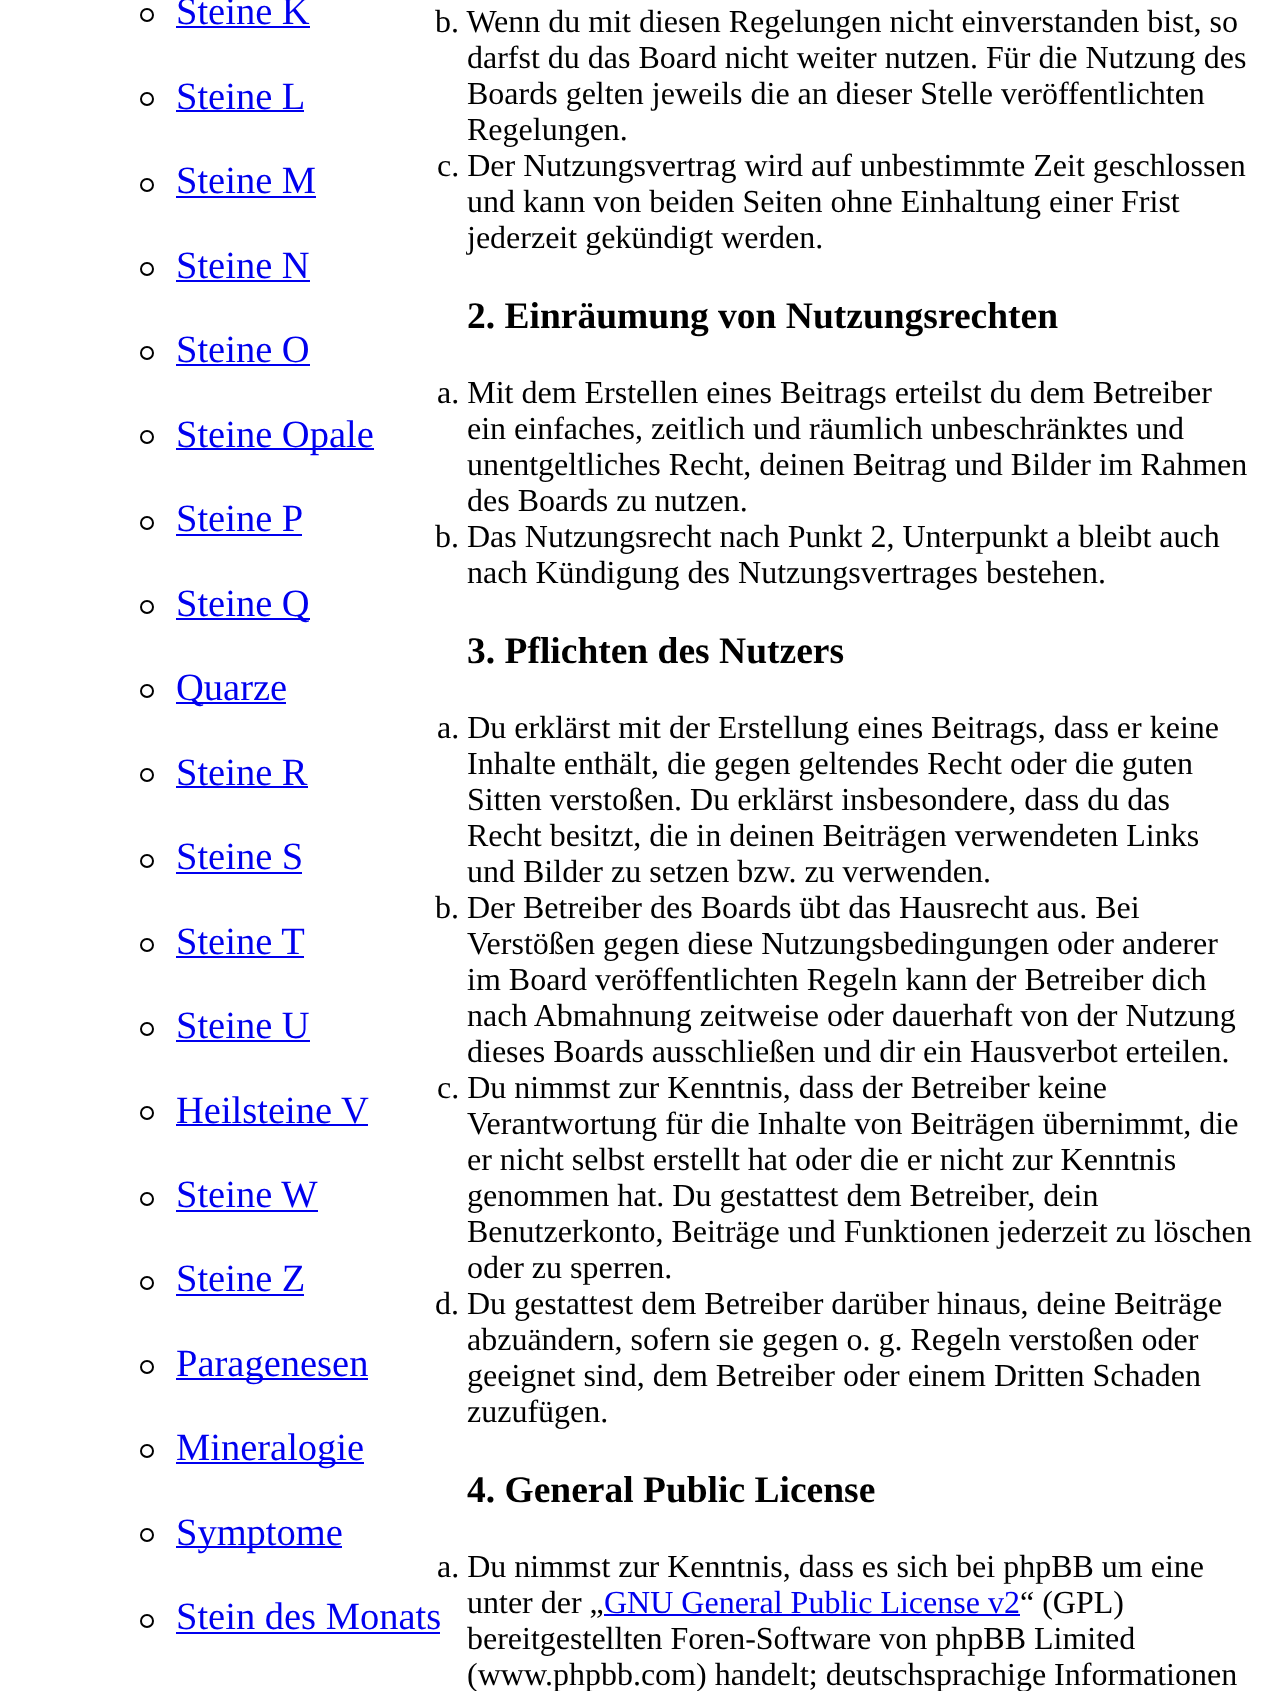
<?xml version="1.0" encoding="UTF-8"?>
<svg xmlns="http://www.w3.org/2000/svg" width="1268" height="1691">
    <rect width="100%" height="100%" fill="#FFFFFF"/>
    <circle cx="147" cy="15" r="6" fill="none" stroke="#000000" stroke-width="2"/>
    <text x="176" y="24" font-family="Liberation Serif" font-size="38.5" fill="#0000EE">Steine K</text>
    <rect x="176" y="26" width="134" height="2" fill="#0000EE"/>
    <circle cx="147" cy="99" r="6" fill="none" stroke="#000000" stroke-width="2"/>
    <text x="176" y="109" font-family="Liberation Serif" font-size="38.5" fill="#0000EE">Steine L</text>
    <rect x="176" y="110" width="128" height="2" fill="#0000EE"/>
    <circle cx="147" cy="185" r="6" fill="none" stroke="#000000" stroke-width="2"/>
    <text x="176" y="193" font-family="Liberation Serif" font-size="38.5" fill="#0000EE">Steine M</text>
    <rect x="176" y="196" width="140" height="2" fill="#0000EE"/>
    <circle cx="147" cy="269" r="6" fill="none" stroke="#000000" stroke-width="2"/>
    <text x="176" y="278" font-family="Liberation Serif" font-size="38.5" fill="#0000EE">Steine N</text>
    <rect x="176" y="280" width="134" height="2" fill="#0000EE"/>
    <circle cx="147" cy="353" r="6" fill="none" stroke="#000000" stroke-width="2"/>
    <text x="176" y="362" font-family="Liberation Serif" font-size="38.5" fill="#0000EE">Steine O</text>
    <rect x="176" y="364" width="134" height="2" fill="#0000EE"/>
    <circle cx="147" cy="437" r="6" fill="none" stroke="#000000" stroke-width="2"/>
    <rect x="176" y="448" width="198" height="2" fill="#0000EE"/>
    <text x="176" y="447" font-family="Liberation Serif" font-size="38.5" fill="#0000EE">Steine Opale</text>
    <circle cx="147" cy="523" r="6" fill="none" stroke="#000000" stroke-width="2"/>
    <text x="176" y="531" font-family="Liberation Serif" font-size="38.5" fill="#0000EE">Steine P</text>
    <rect x="176" y="534" width="126" height="2" fill="#0000EE"/>
    <circle cx="147" cy="607" r="6" fill="none" stroke="#000000" stroke-width="2"/>
    <rect x="176" y="618" width="134" height="2" fill="#0000EE"/>
    <text x="176" y="616" font-family="Liberation Serif" font-size="38.5" fill="#0000EE">Steine Q</text>
    <circle cx="147" cy="691" r="6" fill="none" stroke="#000000" stroke-width="2"/>
    <rect x="176" y="702" width="110" height="2" fill="#0000EE"/>
    <text x="176" y="700" font-family="Liberation Serif" font-size="38.5" fill="#0000EE">Quarze</text>
    <circle cx="147" cy="775" r="6" fill="none" stroke="#000000" stroke-width="2"/>
    <text x="176" y="785" font-family="Liberation Serif" font-size="38.5" fill="#0000EE">Steine R</text>
    <rect x="176" y="786" width="132" height="2" fill="#0000EE"/>
    <circle cx="147" cy="861" r="6" fill="none" stroke="#000000" stroke-width="2"/>
    <text x="176" y="869" font-family="Liberation Serif" font-size="38.5" fill="#0000EE">Steine S</text>
    <rect x="176" y="872" width="126" height="2" fill="#0000EE"/>
    <circle cx="147" cy="945" r="6" fill="none" stroke="#000000" stroke-width="2"/>
    <text x="176" y="954" font-family="Liberation Serif" font-size="38.5" fill="#0000EE">Steine T</text>
    <rect x="176" y="956" width="128" height="2" fill="#0000EE"/>
    <circle cx="147" cy="1029" r="6" fill="none" stroke="#000000" stroke-width="2"/>
    <text x="176" y="1038" font-family="Liberation Serif" font-size="38.5" fill="#0000EE">Steine U</text>
    <rect x="176" y="1040" width="134" height="2" fill="#0000EE"/>
    <circle cx="147" cy="1113" r="6" fill="none" stroke="#000000" stroke-width="2"/>
    <text x="176" y="1123" font-family="Liberation Serif" font-size="38.5" fill="#0000EE">Heilsteine V</text>
    <rect x="176" y="1124" width="192" height="2" fill="#0000EE"/>
    <circle cx="147" cy="1199" r="6" fill="none" stroke="#000000" stroke-width="2"/>
    <text x="176" y="1207" font-family="Liberation Serif" font-size="38.5" fill="#0000EE">Steine W</text>
    <rect x="176" y="1210" width="142" height="2" fill="#0000EE"/>
    <circle cx="147" cy="1283" r="6" fill="none" stroke="#000000" stroke-width="2"/>
    <text x="176" y="1291" font-family="Liberation Serif" font-size="38.5" fill="#0000EE">Steine Z</text>
    <rect x="176" y="1294" width="128" height="2" fill="#0000EE"/>
    <circle cx="147" cy="1367" r="6" fill="none" stroke="#000000" stroke-width="2"/>
    <rect x="176" y="1378" width="192" height="2" fill="#0000EE"/>
    <text x="176" y="1376" font-family="Liberation Serif" font-size="38.5" fill="#0000EE">Paragenesen</text>
    <circle cx="147" cy="1451" r="6" fill="none" stroke="#000000" stroke-width="2"/>
    <rect x="176" y="1462" width="188" height="2" fill="#0000EE"/>
    <text x="176" y="1460" font-family="Liberation Serif" font-size="38.5" fill="#0000EE">Mineralogie</text>
    <circle cx="147" cy="1535" r="6" fill="none" stroke="#000000" stroke-width="2"/>
    <rect x="176" y="1546" width="166" height="2" fill="#0000EE"/>
    <text x="176" y="1545" font-family="Liberation Serif" font-size="38.5" fill="#0000EE">Symptome</text>
    <circle cx="147" cy="1621" r="6" fill="none" stroke="#000000" stroke-width="2"/>
    <text x="176" y="1629" font-family="Liberation Serif" font-size="38.5" fill="#0000EE">Stein des Monats</text>
    <rect x="176" y="1632" width="264" height="2" fill="#0000EE"/>
    <text x="435" y="32" font-family="Liberation Serif" font-size="32" fill="#000000">b. Wenn du mit diesen Regelungen nicht einverstanden bist, so</text>
    <text font-family="Liberation Serif" font-size="32" fill="#000000">
        <tspan x="467" y="68">darfst du das Board nicht weiter nutzen. Für die Nutzung des</tspan>
        <tspan x="467" y="104">Boards gelten jeweils die an dieser Stelle veröffentlichten</tspan>
        <tspan x="467" y="140">Regelungen.</tspan>
    </text>
    <text x="437" y="176" font-family="Liberation Serif" font-size="32" fill="#000000">c. Der Nutzungsvertrag wird auf unbestimmte Zeit geschlossen</text>
    <text font-family="Liberation Serif" font-size="32" fill="#000000">
        <tspan x="467" y="212">und kann von beiden Seiten ohne Einhaltung einer Frist</tspan>
        <tspan x="467" y="248">jederzeit gekündigt werden.</tspan>
    </text>
    <text x="467" y="328" font-family="Liberation Serif" font-size="37.5" font-weight="700" fill="#000000">2. Einräumung von Nutzungsrechten</text>
    <text x="437" y="403" font-family="Liberation Serif" font-size="32" fill="#000000">a. Mit dem Erstellen eines Beitrags erteilst du dem Betreiber</text>
    <text font-family="Liberation Serif" font-size="32" fill="#000000">
        <tspan x="467" y="439">ein einfaches, zeitlich und räumlich unbeschränktes und</tspan>
        <tspan x="467" y="475">unentgeltliches Recht, deinen Beitrag und Bilder im Rahmen</tspan>
        <tspan x="467" y="511">des Boards zu nutzen.</tspan>
    </text>
    <text x="435" y="547" font-family="Liberation Serif" font-size="32" fill="#000000">b. Das Nutzungsrecht nach Punkt 2, Unterpunkt a bleibt auch</text>
    <text x="467" y="583" font-family="Liberation Serif" font-size="32" fill="#000000">nach Kündigung des Nutzungsvertrages bestehen.</text>
    <text x="467" y="663" font-family="Liberation Serif" font-size="37.5" font-weight="700" fill="#000000">3. Pflichten des Nutzers</text>
    <text x="437" y="738" font-family="Liberation Serif" font-size="32" fill="#000000">a. Du erklärst mit der Erstellung eines Beitrags, dass er keine</text>
    <text font-family="Liberation Serif" font-size="32" fill="#000000">
        <tspan x="467" y="774">Inhalte enthält, die gegen geltendes Recht oder die guten</tspan>
        <tspan x="467" y="810">Sitten verstoßen. Du erklärst insbesondere, dass du das</tspan>
        <tspan x="467" y="846">Recht besitzt, die in deinen Beiträgen verwendeten Links</tspan>
        <tspan x="467" y="882">und Bilder zu setzen bzw. zu verwenden.</tspan>
    </text>
    <text x="435" y="918" font-family="Liberation Serif" font-size="32" fill="#000000">b. Der Betreiber des Boards übt das Hausrecht aus. Bei</text>
    <text font-family="Liberation Serif" font-size="32" fill="#000000">
        <tspan x="467" y="954">Verstößen gegen diese Nutzungsbedingungen oder anderer</tspan>
        <tspan x="467" y="990">im Board veröffentlichten Regeln kann der Betreiber dich</tspan>
        <tspan x="467" y="1026">nach Abmahnung zeitweise oder dauerhaft von der Nutzung</tspan>
        <tspan x="467" y="1062">dieses Boards ausschließen und dir ein Hausverbot erteilen.</tspan>
    </text>
    <text x="437" y="1098" font-family="Liberation Serif" font-size="32" fill="#000000">c. Du nimmst zur Kenntnis, dass der Betreiber keine</text>
    <text font-family="Liberation Serif" font-size="32" fill="#000000">
        <tspan x="467" y="1134">Verantwortung für die Inhalte von Beiträgen übernimmt, die</tspan>
        <tspan x="467" y="1170">er nicht selbst erstellt hat oder die er nicht zur Kenntnis</tspan>
        <tspan x="467" y="1206">genommen hat. Du gestattest dem Betreiber, dein</tspan>
        <tspan x="467" y="1242">Benutzerkonto, Beiträge und Funktionen jederzeit zu löschen</tspan>
        <tspan x="467" y="1278">oder zu sperren.</tspan>
    </text>
    <text x="435" y="1314" font-family="Liberation Serif" font-size="32" fill="#000000">d. Du gestattest dem Betreiber darüber hinaus, deine Beiträge</text>
    <text font-family="Liberation Serif" font-size="32" fill="#000000">
        <tspan x="467" y="1350">abzuändern, sofern sie gegen o. g. Regeln verstoßen oder</tspan>
        <tspan x="467" y="1386">geeignet sind, dem Betreiber oder einem Dritten Schaden</tspan>
        <tspan x="467" y="1422">zuzufügen.</tspan>
    </text>
    <text x="467" y="1502" font-family="Liberation Serif" font-size="37.5" font-weight="700" fill="#000000">4. General Public License</text>
    <text x="437" y="1577" font-family="Liberation Serif" font-size="32" fill="#000000">a. Du nimmst zur Kenntnis, dass es sich bei phpBB um eine</text>
    <text x="467" y="1613" font-family="Liberation Serif" font-size="32" fill="#000000">unter der „</text>
    <text x="604" y="1613" font-family="Liberation Serif" font-size="32" fill="#0000EE">GNU General Public License v2</text>
    <rect x="604" y="1614" width="416" height="2" fill="#0000EE"/>
    <text x="1020" y="1613" font-family="Liberation Serif" font-size="32" fill="#000000">“ (GPL)</text>
    <text font-family="Liberation Serif" font-size="32" fill="#000000">
        <tspan x="467" y="1649">bereitgestellten Foren-Software von phpBB Limited</tspan>
        <tspan x="467" y="1685">(www.phpbb.com) handelt; deutschsprachige Informationen</tspan>
    </text>
</svg>
